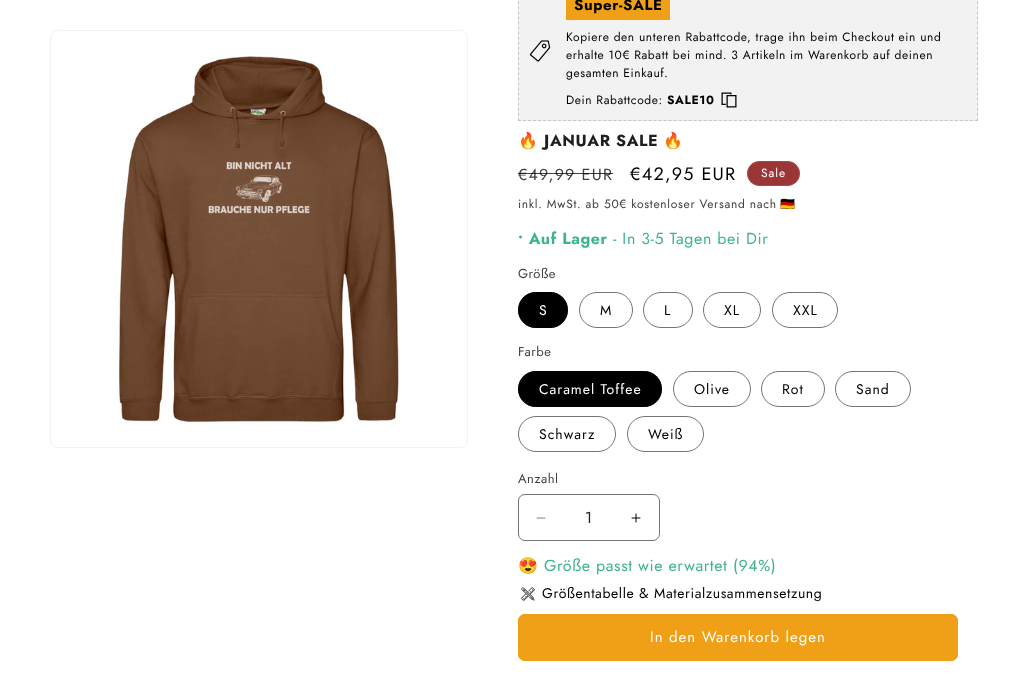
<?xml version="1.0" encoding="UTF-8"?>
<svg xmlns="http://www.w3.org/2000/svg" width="1028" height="679">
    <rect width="100%" height="100%" fill="#FFFFFF"/>
    <rect x="50.5" y="30.5" width="417" height="417" rx="7.5" fill="none" stroke="#F2F2F2"/>
    <image x="118" y="55" width="282" height="369" href="img_01.png"/>
    <rect x="518" y="0" width="460" height="121" fill="#F2F2F2"/>
    <path d="M 977.5 -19 V 121" fill="none" stroke="#C6C6C6" stroke-dasharray="3 2.07"/>
    <path d="M 518 120.5 H 978" fill="none" stroke="#C6C6C6" stroke-dasharray="3 2.02"/>
    <path d="M 518.5 -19 V 121" fill="none" stroke="#C6C6C6" stroke-dasharray="3 2.07"/>
    <image x="529" y="40" width="22" height="22" href="img_02.png"/>
    <rect x="566" y="0" width="104" height="20" fill="#EFA016"/>
    <text x="574" y="10" font-family="Jost" font-size="15" font-weight="700" letter-spacing="0.6" fill="#000000">Super-SALE</text>
    <text font-family="Jost" font-size="12" letter-spacing="0.6" fill="#000000">
        <tspan x="566" y="41">Kopiere den unteren Rabattcode, trage ihn beim Checkout ein und</tspan>
        <tspan x="566" y="59">erhalte 10€ Rabatt bei mind. 3 Artikeln im Warenkorb auf deinen</tspan>
        <tspan x="566" y="77">gesamten Einkauf.</tspan>
    </text>
    <text x="566" y="104" font-family="Jost" font-size="12" letter-spacing="0.6" fill="#000000">Dein Rabattcode:</text>
    <text x="667" y="104" font-family="Jost" font-size="12" font-weight="700" letter-spacing="0.6" fill="#000000">SALE10</text>
    <image x="721" y="92" width="16" height="16" href="img_03.png"/>
    <text x="518" y="146" font-family="Noto Color Emoji" font-size="16" font-weight="700" letter-spacing="0.6" fill="#201C22">🔥</text>
    <text x="544" y="146" font-family="Jost" font-size="16" font-weight="700" letter-spacing="0.6" fill="#201C22">JANUAR SALE</text>
    <text x="663" y="146" font-family="Noto Color Emoji" font-size="16" font-weight="700" letter-spacing="0.6" fill="#201C22">🔥</text>
    <text x="518" y="180" font-family="Jost" font-size="16" letter-spacing="1.25" fill="#404040">€49,99 EUR</text>
    <rect x="518" y="173" width="95" height="1" fill="#000000" fill-opacity="0.75"/>
    <text x="630" y="180" font-family="Jost" font-size="18" letter-spacing="1.25" fill="#000000">€42,95 EUR</text>
    <rect x="747" y="161" width="53" height="25" rx="12.5" fill="#9C3636"/>
    <rect x="747.5" y="161.5" width="52" height="24" rx="12" fill="none" stroke="#FFFFFF" stroke-opacity="0.1"/>
    <text x="761" y="177" font-family="Jost" font-size="12" letter-spacing="1" fill="#FFFFFF">Sale</text>
    <text x="518" y="208" font-family="Jost" font-size="12" letter-spacing="0.7" fill="#404040">inkl. MwSt. ab 50€ kostenloser Versand nach</text>
    <text x="780" y="208" font-family="Noto Color Emoji" font-size="12" letter-spacing="0.7" fill="#404040">🇩🇪</text>
    <text x="518" y="244" font-family="Jost" font-size="16" font-weight="700" letter-spacing="0.6" fill="#3EB489">• Auf Lager</text>
    <text x="613" y="244" font-family="Jost" font-size="16" letter-spacing="0.6" fill="#3EB489">- In 3-5 Tagen bei Dir</text>
    <text x="518" y="278" font-family="Jost" font-size="13" letter-spacing="0.5" fill="#404040">Größe</text>
    <rect x="518" y="292" width="50" height="36" rx="18" fill="#000000"/>
    <rect x="518.5" y="292.5" width="49" height="35" rx="17.5" fill="none" stroke="#000000" stroke-opacity="0.55"/>
    <text x="539" y="315" font-family="Jost" font-size="14" letter-spacing="1" fill="#FFFFFF">S</text>
    <rect x="579.5" y="292.5" width="53" height="35" rx="17.5" fill="none" stroke="#737373"/>
    <text x="600" y="315" font-family="Jost" font-size="14" letter-spacing="1" fill="#000000">M</text>
    <rect x="643.5" y="292.5" width="49" height="35" rx="17.5" fill="none" stroke="#737373"/>
    <text x="664" y="315" font-family="Jost" font-size="14" letter-spacing="1" fill="#000000">L</text>
    <rect x="703.5" y="292.5" width="57" height="35" rx="17.5" fill="none" stroke="#737373"/>
    <text x="724" y="315" font-family="Jost" font-size="14" letter-spacing="1" fill="#000000">XL</text>
    <rect x="772.5" y="292.5" width="65" height="35" rx="17.5" fill="none" stroke="#737373"/>
    <text x="793" y="315" font-family="Jost" font-size="14" letter-spacing="1" fill="#000000">XXL</text>
    <text x="518" y="356" font-family="Jost" font-size="13" letter-spacing="0.5" fill="#404040">Farbe</text>
    <rect x="518" y="371" width="144" height="36" rx="18" fill="#000000"/>
    <rect x="518.5" y="371.5" width="143" height="35" rx="17.5" fill="none" stroke="#000000" stroke-opacity="0.55"/>
    <text x="539" y="394" font-family="Jost" font-size="14" letter-spacing="1" fill="#FFFFFF">Caramel Toffee</text>
    <rect x="673.5" y="371.5" width="77" height="35" rx="17.5" fill="none" stroke="#737373"/>
    <text x="694" y="394" font-family="Jost" font-size="14" letter-spacing="1" fill="#000000">Olive</text>
    <rect x="761.5" y="371.5" width="63" height="35" rx="17.5" fill="none" stroke="#737373"/>
    <text x="782" y="394" font-family="Jost" font-size="14" letter-spacing="1" fill="#000000">Rot</text>
    <rect x="835.5" y="371.5" width="75" height="35" rx="17.5" fill="none" stroke="#737373"/>
    <text x="856" y="394" font-family="Jost" font-size="14" letter-spacing="1" fill="#000000">Sand</text>
    <rect x="518.5" y="416.5" width="97" height="35" rx="17.5" fill="none" stroke="#737373"/>
    <text x="539" y="439" font-family="Jost" font-size="14" letter-spacing="1" fill="#000000">Schwarz</text>
    <rect x="627.5" y="416.5" width="76" height="35" rx="17.5" fill="none" stroke="#737373"/>
    <text x="648" y="439" font-family="Jost" font-size="14" letter-spacing="1" fill="#000000">Weiß</text>
    <text x="518" y="483" font-family="Jost" font-size="13" letter-spacing="0.5" fill="#404040">Anzahl</text>
    <image x="536" y="517" width="10" height="2" href="img_04.png"/>
    <image x="631" y="513" width="10" height="10" href="img_05.png"/>
    <rect x="518.5" y="494.5" width="141" height="46" rx="6.5" fill="none" stroke="#737373"/>
    <text x="585" y="523" font-family="Jost" font-size="16" fill="#262626">1</text>
    <text x="518" y="571" font-family="Noto Color Emoji" font-size="16" letter-spacing="0.6" fill="#3EB489">😍</text>
    <text x="544" y="571" font-family="Jost" font-size="16" letter-spacing="0.6" fill="#3EB489">Größe passt wie erwartet (94%)</text>
    <image x="521" y="587" width="14" height="14" href="img_06.png"/>
    <text x="542" y="598" font-family="Jost" font-size="14" letter-spacing="0.6" fill="#000000">Größentabelle &amp; Materialzusammensetzung</text>
    <rect x="518" y="614" width="440" height="47" rx="7" fill="#EFA016"/>
    <rect x="518.5" y="614.5" width="439" height="46" rx="6.5" fill="none" stroke="#EFA016"/>
    <text x="650" y="642" font-family="Jost" font-size="15" letter-spacing="1" fill="#FFFFFF">In den Warenkorb legen</text>
</svg>
